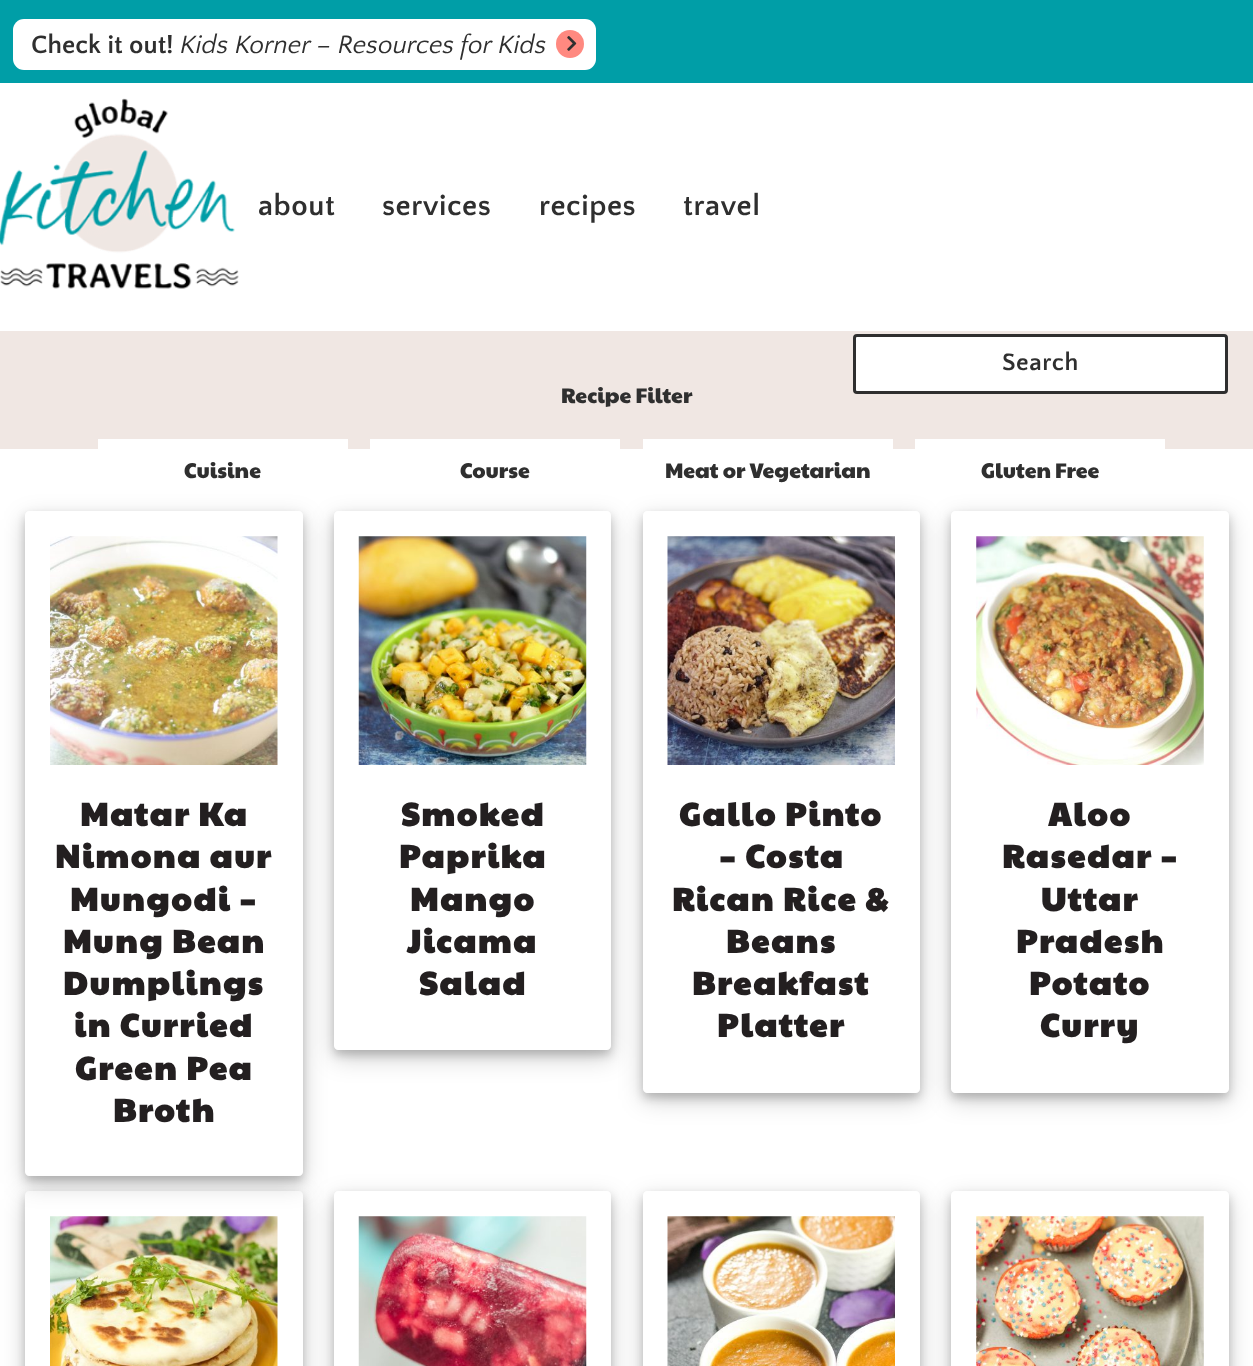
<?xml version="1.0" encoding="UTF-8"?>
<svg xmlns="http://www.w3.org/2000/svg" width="1253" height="1366">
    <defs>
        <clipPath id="clip1"><path d="M 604 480 H 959 V 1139 H 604 Z M 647 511 H 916 C 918 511 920 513 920 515 V 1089 C 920 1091 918 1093 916 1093 H 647 C 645 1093 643 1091 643 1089 V 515 C 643 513 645 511 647 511 Z" clip-rule="evenodd"/></clipPath>
        <filter id="blur1" x="-50%" y="-200%" width="200%" height="500%"><feGaussianBlur stdDeviation="12.5"/></filter>
        <clipPath id="clip2"><path d="M 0 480 H 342 V 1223 H 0 Z M 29 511 H 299 C 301 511 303 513 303 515 V 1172 C 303 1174 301 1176 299 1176 H 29 C 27 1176 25 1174 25 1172 V 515 C 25 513 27 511 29 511 Z" clip-rule="evenodd"/></clipPath>
        <clipPath id="clip3"><path d="M 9 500 H 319 V 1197 H 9 Z M 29 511 H 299 C 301 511 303 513 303 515 V 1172 C 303 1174 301 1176 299 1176 H 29 C 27 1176 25 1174 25 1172 V 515 C 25 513 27 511 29 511 Z" clip-rule="evenodd"/></clipPath>
        <filter id="blur2" x="-50%" y="-200%" width="200%" height="500%"><feGaussianBlur stdDeviation="5"/></filter>
        <clipPath id="clip4"><path d="M 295 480 H 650 V 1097 H 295 Z M 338 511 H 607 C 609 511 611 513 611 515 V 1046 C 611 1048 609 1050 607 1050 H 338 C 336 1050 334 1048 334 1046 V 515 C 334 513 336 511 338 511 Z" clip-rule="evenodd"/></clipPath>
        <clipPath id="clip5"><path d="M 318 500 H 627 V 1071 H 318 Z M 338 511 H 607 C 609 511 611 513 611 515 V 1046 C 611 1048 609 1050 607 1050 H 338 C 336 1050 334 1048 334 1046 V 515 C 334 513 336 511 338 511 Z" clip-rule="evenodd"/></clipPath>
        <clipPath id="clip6"><path d="M 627 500 H 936 V 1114 H 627 Z M 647 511 H 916 C 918 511 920 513 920 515 V 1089 C 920 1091 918 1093 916 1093 H 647 C 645 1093 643 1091 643 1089 V 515 C 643 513 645 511 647 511 Z" clip-rule="evenodd"/></clipPath>
        <clipPath id="clip7"><path d="M 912 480 H 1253 V 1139 H 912 Z M 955 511 H 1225 C 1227 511 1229 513 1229 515 V 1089 C 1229 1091 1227 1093 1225 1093 H 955 C 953 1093 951 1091 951 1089 V 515 C 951 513 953 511 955 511 Z" clip-rule="evenodd"/></clipPath>
        <clipPath id="clip8"><path d="M 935 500 H 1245 V 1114 H 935 Z M 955 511 H 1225 C 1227 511 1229 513 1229 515 V 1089 C 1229 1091 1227 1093 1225 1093 H 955 C 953 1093 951 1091 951 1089 V 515 C 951 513 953 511 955 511 Z" clip-rule="evenodd"/></clipPath>
        <clipPath id="clip9"><path d="M 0 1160 H 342 V 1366 H 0 Z M 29 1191 H 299 C 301 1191 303 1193 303 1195 V 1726 C 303 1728 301 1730 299 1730 H 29 C 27 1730 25 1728 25 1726 V 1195 C 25 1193 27 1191 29 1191 Z" clip-rule="evenodd"/></clipPath>
        <clipPath id="clip10"><path d="M 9 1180 H 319 V 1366 H 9 Z M 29 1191 H 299 C 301 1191 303 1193 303 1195 V 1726 C 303 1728 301 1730 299 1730 H 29 C 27 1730 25 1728 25 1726 V 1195 C 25 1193 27 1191 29 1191 Z" clip-rule="evenodd"/></clipPath>
        <clipPath id="clip11"><path d="M 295 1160 H 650 V 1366 H 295 Z M 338 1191 H 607 C 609 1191 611 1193 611 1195 V 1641 C 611 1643 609 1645 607 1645 H 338 C 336 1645 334 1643 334 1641 V 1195 C 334 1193 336 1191 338 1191 Z" clip-rule="evenodd"/></clipPath>
        <clipPath id="clip12"><path d="M 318 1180 H 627 V 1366 H 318 Z M 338 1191 H 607 C 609 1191 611 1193 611 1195 V 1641 C 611 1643 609 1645 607 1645 H 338 C 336 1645 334 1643 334 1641 V 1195 C 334 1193 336 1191 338 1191 Z" clip-rule="evenodd"/></clipPath>
        <clipPath id="clip13"><path d="M 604 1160 H 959 V 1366 H 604 Z M 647 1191 H 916 C 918 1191 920 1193 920 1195 V 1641 C 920 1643 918 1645 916 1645 H 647 C 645 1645 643 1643 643 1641 V 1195 C 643 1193 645 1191 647 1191 Z" clip-rule="evenodd"/></clipPath>
        <clipPath id="clip14"><path d="M 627 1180 H 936 V 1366 H 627 Z M 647 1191 H 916 C 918 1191 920 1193 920 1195 V 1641 C 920 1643 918 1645 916 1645 H 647 C 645 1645 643 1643 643 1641 V 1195 C 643 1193 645 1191 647 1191 Z" clip-rule="evenodd"/></clipPath>
        <clipPath id="clip15"><path d="M 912 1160 H 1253 V 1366 H 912 Z M 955 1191 H 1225 C 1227 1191 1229 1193 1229 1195 V 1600 C 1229 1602 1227 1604 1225 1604 H 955 C 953 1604 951 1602 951 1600 V 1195 C 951 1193 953 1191 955 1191 Z" clip-rule="evenodd"/></clipPath>
        <clipPath id="clip16"><path d="M 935 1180 H 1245 V 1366 H 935 Z M 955 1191 H 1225 C 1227 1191 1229 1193 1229 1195 V 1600 C 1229 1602 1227 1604 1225 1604 H 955 C 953 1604 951 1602 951 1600 V 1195 C 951 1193 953 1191 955 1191 Z" clip-rule="evenodd"/></clipPath>
    </defs>
    <rect width="100%" height="100%" fill="#FFFFFF"/>
    <rect x="0" y="0" width="1253" height="83" fill="#009EA7"/>
    <rect x="13" y="19" width="583" height="51" rx="11" fill="#FFFFFF"/>
    <text x="31" y="53" font-family="Quattrocento Sans" font-size="26.25" font-weight="700" fill="#2F2F2F">Check it out!</text>
    <text x="180" y="53" font-family="Quattrocento Sans" font-size="26.25" font-style="italic" fill="#2F2F2F">Kids Korner – Resources for Kids</text>
    <circle cx="570" cy="44" r="14" fill="#FF8980"/>
    <image x="567" y="36" width="10" height="15" href="img_01.png"/>
    <image x="0" y="98" width="239" height="191" href="img_02.png"/>
    <text x="258" y="215" font-family="Quattrocento Sans" font-size="30" font-weight="700" letter-spacing="0.5" fill="#2F2F2F">about</text>
    <text x="382" y="215" font-family="Quattrocento Sans" font-size="30" font-weight="700" letter-spacing="0.5" fill="#2F2F2F">services</text>
    <text x="539" y="215" font-family="Quattrocento Sans" font-size="30" font-weight="700" letter-spacing="0.5" fill="#2F2F2F">recipes</text>
    <text x="683" y="215" font-family="Quattrocento Sans" font-size="30" font-weight="700" letter-spacing="0.5" fill="#2F2F2F">travel</text>
    <rect x="0" y="331" width="1253" height="118" fill="#F0E7E3"/>
    <rect x="854.5" y="335.5" width="372" height="57" rx="2.5" fill="#FFFFFF" stroke="#2F2F2F" stroke-width="3"/>
    <text x="1002" y="370" font-family="Quattrocento Sans" font-size="25" font-weight="700" letter-spacing="0.5" fill="#2F2F2F">Search</text>
    <text x="561" y="403" font-family="Paytone One" font-size="21.25" fill="#2F2F2F">Recipe Filter</text>
    <rect x="98" y="439" width="250" height="10" fill="#FFFFFF"/>
    <text x="184" y="478" font-family="Paytone One" font-size="21.25" fill="#2F2F2F">Cuisine</text>
    <rect x="370" y="439" width="250" height="10" fill="#FFFFFF"/>
    <text x="460" y="478" font-family="Paytone One" font-size="21.25" fill="#2F2F2F">Course</text>
    <rect x="643" y="439" width="250" height="10" fill="#FFFFFF"/>
    <g clip-path="url(#clip1)">
        <rect x="643" y="519" width="277" height="581" rx="4" fill="#000000" fill-opacity="0.19" filter="url(#blur1)"/>
    </g>
    <text x="665" y="478" font-family="Paytone One" font-size="21.25" fill="#2F2F2F">Meat or Vegetarian</text>
    <rect x="915" y="439" width="250" height="10" fill="#FFFFFF"/>
    <text x="981" y="478" font-family="Paytone One" font-size="21.25" fill="#2F2F2F">Gluten Free</text>
    <g clip-path="url(#clip2)">
        <rect x="25" y="519" width="278" height="665" rx="4" fill="#000000" fill-opacity="0.19" filter="url(#blur1)"/>
    </g>
    <g clip-path="url(#clip3)">
        <rect x="25" y="516" width="278" height="665" rx="4" fill="#000000" fill-opacity="0.2" filter="url(#blur2)"/>
    </g>
    <image x="50" y="536" width="228" height="229" href="img_03.png"/>
    <text x="80" y="826" font-family="Paytone One" font-size="32.5" font-weight="700" letter-spacing="1.9" fill="#231F20">Matar Ka</text>
    <text x="55" y="868" font-family="Paytone One" font-size="32.5" font-weight="700" letter-spacing="1.9" fill="#231F20">Nimona aur</text>
    <text x="70" y="911" font-family="Paytone One" font-size="32.5" font-weight="700" letter-spacing="1.9" fill="#231F20">Mungodi –</text>
    <text font-family="Paytone One" font-size="32.5" font-weight="700" letter-spacing="1.9" fill="#231F20">
        <tspan x="63" y="953">Mung Bean</tspan>
        <tspan x="63" y="995">Dumplings</tspan>
    </text>
    <text x="74" y="1037" font-family="Paytone One" font-size="32.5" font-weight="700" letter-spacing="1.9" fill="#231F20">in Curried</text>
    <text x="75" y="1080" font-family="Paytone One" font-size="32.5" font-weight="700" letter-spacing="1.9" fill="#231F20">Green Pea</text>
    <text x="113" y="1122" font-family="Paytone One" font-size="32.5" font-weight="700" letter-spacing="1.9" fill="#231F20">Broth</text>
    <g clip-path="url(#clip4)">
        <rect x="334" y="519" width="277" height="539" rx="4" fill="#000000" fill-opacity="0.19" filter="url(#blur1)"/>
    </g>
    <g clip-path="url(#clip5)">
        <rect x="334" y="516" width="277" height="539" rx="4" fill="#000000" fill-opacity="0.2" filter="url(#blur2)"/>
    </g>
    <image x="358" y="536" width="229" height="229" href="img_04.png"/>
    <text x="401" y="826" font-family="Paytone One" font-size="32.5" font-weight="700" letter-spacing="1.9" fill="#231F20">Smoked</text>
    <text x="399" y="868" font-family="Paytone One" font-size="32.5" font-weight="700" letter-spacing="1.9" fill="#231F20">Paprika</text>
    <text x="410" y="911" font-family="Paytone One" font-size="32.5" font-weight="700" letter-spacing="1.9" fill="#231F20">Mango</text>
    <text x="407" y="953" font-family="Paytone One" font-size="32.5" font-weight="700" letter-spacing="1.9" fill="#231F20">Jicama</text>
    <text x="419" y="995" font-family="Paytone One" font-size="32.5" font-weight="700" letter-spacing="1.9" fill="#231F20">Salad</text>
    <g clip-path="url(#clip6)">
        <rect x="643" y="516" width="277" height="582" rx="4" fill="#000000" fill-opacity="0.2" filter="url(#blur2)"/>
    </g>
    <image x="667" y="536" width="228" height="229" href="img_05.png"/>
    <text x="679" y="826" font-family="Paytone One" font-size="32.5" font-weight="700" letter-spacing="1.9" fill="#231F20">Gallo Pinto</text>
    <text x="719" y="868" font-family="Paytone One" font-size="32.5" font-weight="700" letter-spacing="1.9" fill="#231F20">– Costa</text>
    <text x="672" y="911" font-family="Paytone One" font-size="32.5" font-weight="700" letter-spacing="1.9" fill="#231F20">Rican Rice &amp;</text>
    <text x="726" y="953" font-family="Paytone One" font-size="32.5" font-weight="700" letter-spacing="1.9" fill="#231F20">Beans</text>
    <text x="692" y="995" font-family="Paytone One" font-size="32.5" font-weight="700" letter-spacing="1.9" fill="#231F20">Breakfast</text>
    <text x="717" y="1037" font-family="Paytone One" font-size="32.5" font-weight="700" letter-spacing="1.9" fill="#231F20">Platter</text>
    <g clip-path="url(#clip7)">
        <rect x="951" y="519" width="278" height="581" rx="4" fill="#000000" fill-opacity="0.19" filter="url(#blur1)"/>
    </g>
    <g clip-path="url(#clip8)">
        <rect x="951" y="516" width="278" height="582" rx="4" fill="#000000" fill-opacity="0.2" filter="url(#blur2)"/>
    </g>
    <image x="976" y="536" width="228" height="229" href="img_06.png"/>
    <text x="1048" y="826" font-family="Paytone One" font-size="32.5" font-weight="700" letter-spacing="1.9" fill="#231F20">Aloo</text>
    <text x="1002" y="868" font-family="Paytone One" font-size="32.5" font-weight="700" letter-spacing="1.9" fill="#231F20">Rasedar –</text>
    <text x="1041" y="911" font-family="Paytone One" font-size="32.5" font-weight="700" letter-spacing="1.9" fill="#231F20">Uttar</text>
    <text x="1016" y="953" font-family="Paytone One" font-size="32.5" font-weight="700" letter-spacing="1.9" fill="#231F20">Pradesh</text>
    <text x="1029" y="995" font-family="Paytone One" font-size="32.5" font-weight="700" letter-spacing="1.9" fill="#231F20">Potato</text>
    <text x="1040" y="1037" font-family="Paytone One" font-size="32.5" font-weight="700" letter-spacing="1.9" fill="#231F20">Curry</text>
    <g clip-path="url(#clip9)">
        <rect x="25" y="1199" width="278" height="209" rx="4" fill="#000000" fill-opacity="0.19" filter="url(#blur1)"/>
    </g>
    <g clip-path="url(#clip10)">
        <rect x="25" y="1196" width="278" height="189" rx="4" fill="#000000" fill-opacity="0.2" filter="url(#blur2)"/>
    </g>
    <image x="50" y="1216" width="228" height="150" href="img_07.png"/>
    <g clip-path="url(#clip11)">
        <rect x="334" y="1199" width="277" height="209" rx="4" fill="#000000" fill-opacity="0.19" filter="url(#blur1)"/>
    </g>
    <g clip-path="url(#clip12)">
        <rect x="334" y="1196" width="277" height="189" rx="4" fill="#000000" fill-opacity="0.2" filter="url(#blur2)"/>
    </g>
    <image x="358" y="1216" width="229" height="150" href="img_08.png"/>
    <g clip-path="url(#clip13)">
        <rect x="643" y="1199" width="277" height="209" rx="4" fill="#000000" fill-opacity="0.19" filter="url(#blur1)"/>
    </g>
    <g clip-path="url(#clip14)">
        <rect x="643" y="1196" width="277" height="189" rx="4" fill="#000000" fill-opacity="0.2" filter="url(#blur2)"/>
    </g>
    <image x="667" y="1216" width="228" height="150" href="img_09.png"/>
    <g clip-path="url(#clip15)">
        <rect x="951" y="1199" width="278" height="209" rx="4" fill="#000000" fill-opacity="0.19" filter="url(#blur1)"/>
    </g>
    <g clip-path="url(#clip16)">
        <rect x="951" y="1196" width="278" height="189" rx="4" fill="#000000" fill-opacity="0.2" filter="url(#blur2)"/>
    </g>
    <image x="976" y="1216" width="228" height="150" href="img_10.png"/>
</svg>
